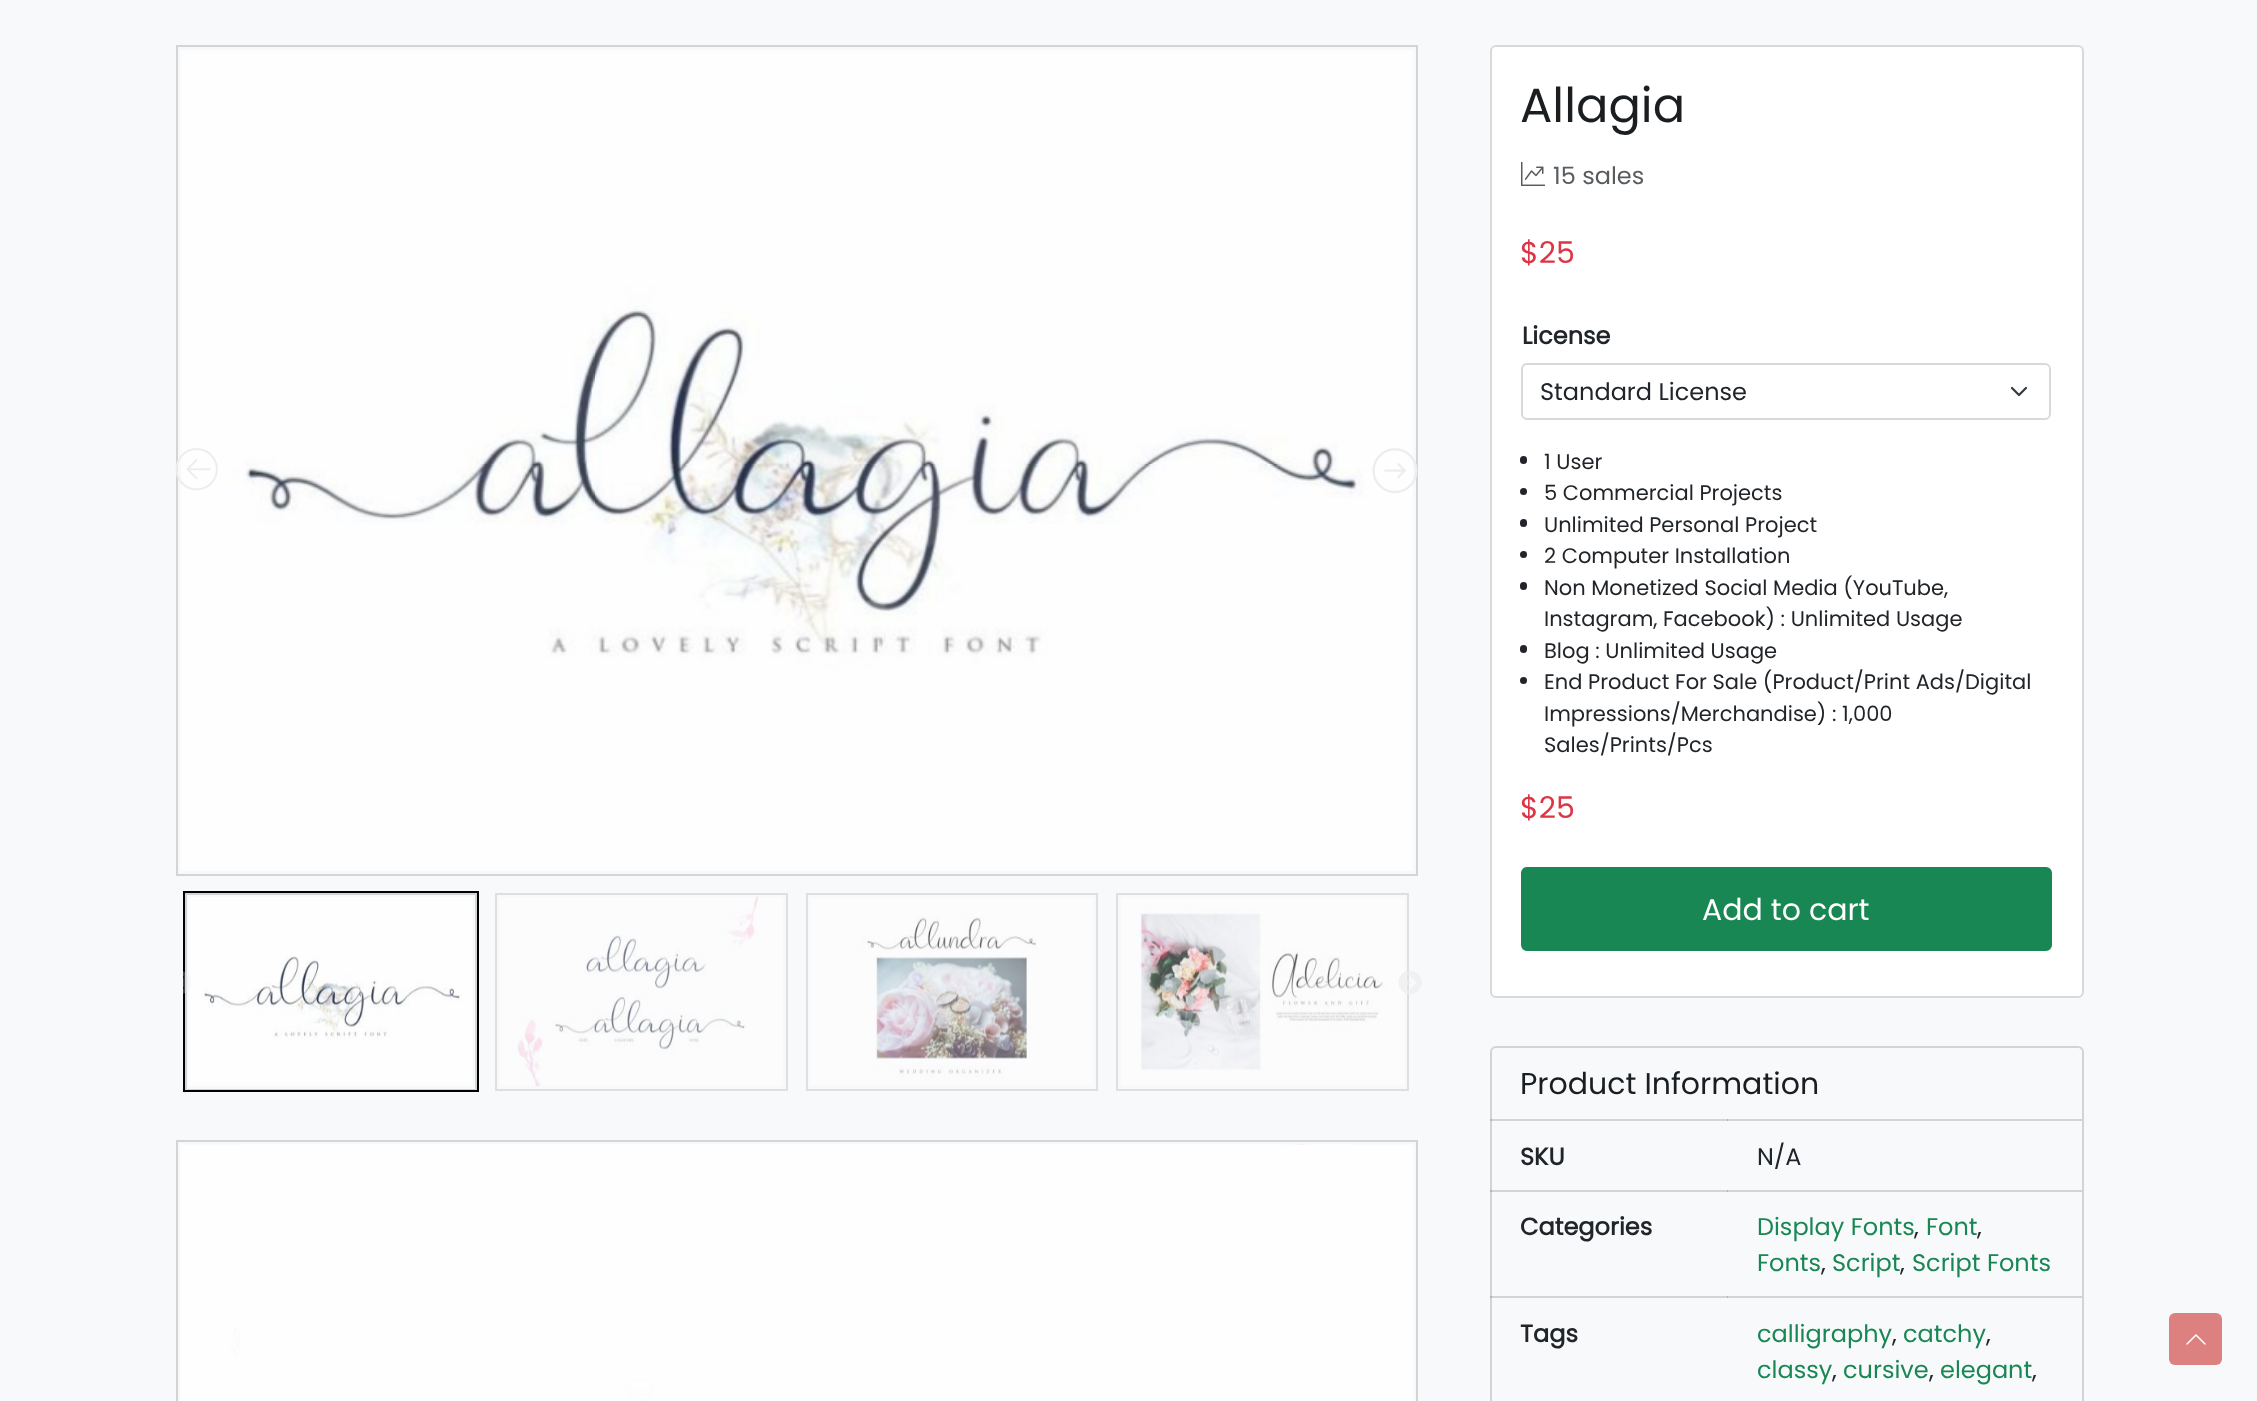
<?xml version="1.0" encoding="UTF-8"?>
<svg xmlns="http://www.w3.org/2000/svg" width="2257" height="1401">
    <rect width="100%" height="100%" fill="#F8F9FA"/>
    <rect x="177" y="46" width="1240" height="829" fill="none" stroke="#D3D4D5" stroke-width="2"/>
    <image x="181" y="50" width="1232" height="821" href="img_01.png"/>
    <image x="175" y="448" width="43" height="43" href="img_02.png"/>
    <image x="1372" y="448" width="46" height="45" href="img_03.png"/>
    <rect x="184" y="892" width="294" height="199" fill="none" stroke="#000000" stroke-width="2"/>
    <rect x="186" y="894" width="290" height="196" fill="none" stroke="#000000" stroke-opacity="0.15" stroke-width="2"/>
    <image x="189" y="897" width="283" height="189" href="img_04.png"/>
    <rect x="496" y="894" width="291" height="196" fill="none" stroke="#DEDFE0" stroke-width="2"/>
    <image x="500" y="896" width="283" height="191" href="img_05.png"/>
    <rect x="807" y="894" width="290" height="196" fill="none" stroke="#DEDFE0" stroke-width="2"/>
    <image x="810" y="898" width="283" height="187" href="img_06.png"/>
    <rect x="1117" y="894" width="291" height="196" fill="none" stroke="#DEDFE0" stroke-width="2"/>
    <image x="1121" y="898" width="283" height="187" href="img_07.png"/>
    <image x="183" y="971" width="8" height="23" href="img_08.png"/>
    <image x="1398" y="971" width="24" height="23" href="img_09.png"/>
    <rect x="177" y="1141" width="1240" height="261" fill="none" stroke="#D3D4D5" stroke-width="2"/>
    <image x="180" y="1144" width="1233" height="257" href="img_10.png"/>
    <image x="240" y="1144" width="1110" height="257" href="img_11.png"/>
    <rect x="1491" y="46" width="592" height="951" rx="5" fill="#FFFFFF" stroke="#D9D9D9" stroke-width="2"/>
    <text x="1520" y="122" font-family="Poppins" font-size="48" fill="#1A1E21">Allagia</text>
    <image x="1521" y="162" width="24" height="24" href="img_12.png"/>
    <text x="1553" y="184" font-family="Poppins" font-size="24" fill="#595C5F">15 sales</text>
    <text x="1520" y="263" font-family="Poppins" font-size="30" fill="#DC3545">$25</text>
    <text x="1522" y="344" font-family="Poppins" font-size="24" font-weight="700" fill="#212529">License</text>
    <path d="M 2012 388 L 2019 395 L 2026 388" fill="none" stroke="#343A40" stroke-width="2.2" stroke-linecap="round" stroke-linejoin="round"/>
    <rect x="1522" y="364" width="528" height="55" rx="5" fill="none" stroke="#D9D9D9" stroke-width="2"/>
    <text x="1540" y="400" font-family="Poppins" font-size="24" fill="#212529">Standard License</text>
    <rect x="1520" y="456" width="7" height="8" rx="3.5" fill="#212529"/>
    <text x="1544" y="469" font-family="Poppins" font-size="21" fill="#212529">1 User</text>
    <circle cx="1523.5" cy="491.5" r="3.5" fill="#212529"/>
    <text x="1544" y="500" font-family="Poppins" font-size="21" fill="#212529">5 Commercial Projects</text>
    <rect x="1520" y="519" width="7" height="8" rx="3.5" fill="#212529"/>
    <text x="1544" y="532" font-family="Poppins" font-size="21" fill="#212529">Unlimited Personal Project</text>
    <circle cx="1523.5" cy="554.5" r="3.5" fill="#212529"/>
    <text x="1544" y="563" font-family="Poppins" font-size="21" fill="#212529">2 Computer Installation</text>
    <rect x="1520" y="582" width="7" height="8" rx="3.5" fill="#212529"/>
    <text font-family="Poppins" font-size="21" fill="#212529">
        <tspan x="1544" y="595">Non Monetized Social Media (YouTube,</tspan>
        <tspan x="1544" y="626">Instagram, Facebook) : Unlimited Usage</tspan>
    </text>
    <rect x="1520" y="645" width="7" height="8" rx="3.5" fill="#212529"/>
    <text x="1544" y="658" font-family="Poppins" font-size="21" fill="#212529">Blog : Unlimited Usage</text>
    <circle cx="1523.5" cy="680.5" r="3.5" fill="#212529"/>
    <text font-family="Poppins" font-size="21" fill="#212529">
        <tspan x="1544" y="689">End Product For Sale (Product/Print Ads/Digital</tspan>
        <tspan x="1544" y="721">Impressions/Merchandise) : 1,000</tspan>
        <tspan x="1544" y="752">Sales/Prints/Pcs</tspan>
    </text>
    <text x="1520" y="818" font-family="Poppins" font-size="30" fill="#DC3545">$25</text>
    <rect x="1522" y="868" width="529" height="82" rx="5" fill="#198754" stroke="#198754" stroke-width="2"/>
    <text x="1702" y="920" font-family="Poppins" font-size="30" fill="#FFFFFF">Add to cart</text>
    <rect x="1491" y="1047" width="592" height="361" rx="5" fill="none" stroke="#D3D4D5" stroke-width="2"/>
    <text x="1520" y="1094" font-family="Poppins" font-size="30" fill="#1A1E21">Product Information</text>
    <rect x="1727" y="1119" width="355" height="2" fill="#D3D4D5"/>
    <rect x="1490" y="1119" width="238" height="2" fill="#000000" fill-opacity="0.15"/>
    <text x="1520" y="1165" font-family="Poppins" font-size="24" font-weight="700" fill="#212529">SKU</text>
    <text x="1757" y="1165" font-family="Poppins" font-size="24" fill="#212529">N/A</text>
    <rect x="1727" y="1190" width="355" height="2" fill="#D3D4D5"/>
    <rect x="1490" y="1190" width="238" height="2" fill="#000000" fill-opacity="0.15"/>
    <text x="1520" y="1235" font-family="Poppins" font-size="24" font-weight="700" fill="#212529">Categories</text>
    <text x="1757" y="1235" font-family="Poppins" font-size="24" fill="#198754">Display Fonts</text>
    <text x="1914" y="1235" font-family="Poppins" font-size="24" fill="#212529">,</text>
    <text x="1926" y="1235" font-family="Poppins" font-size="24" fill="#198754">Font</text>
    <text x="1977" y="1235" font-family="Poppins" font-size="24" fill="#212529">,</text>
    <text x="1757" y="1271" font-family="Poppins" font-size="24" fill="#198754">Fonts</text>
    <text x="1821" y="1271" font-family="Poppins" font-size="24" fill="#212529">,</text>
    <text x="1832" y="1271" font-family="Poppins" font-size="24" fill="#198754">Script</text>
    <text x="1900" y="1271" font-family="Poppins" font-size="24" fill="#212529">,</text>
    <text x="1912" y="1271" font-family="Poppins" font-size="24" fill="#198754">Script Fonts</text>
    <rect x="1727" y="1296" width="355" height="2" fill="#D3D4D5"/>
    <rect x="1490" y="1296" width="238" height="2" fill="#000000" fill-opacity="0.15"/>
    <text x="1520" y="1342" font-family="Poppins" font-size="24" font-weight="700" fill="#212529">Tags</text>
    <text x="1757" y="1342" font-family="Poppins" font-size="24" fill="#198754">calligraphy</text>
    <text x="1892" y="1342" font-family="Poppins" font-size="24" fill="#212529">,</text>
    <text x="1903" y="1342" font-family="Poppins" font-size="24" fill="#198754">catchy</text>
    <text x="1986" y="1342" font-family="Poppins" font-size="24" fill="#212529">,</text>
    <text x="1757" y="1378" font-family="Poppins" font-size="24" fill="#198754">classy</text>
    <text x="1832" y="1378" font-family="Poppins" font-size="24" fill="#212529">,</text>
    <text x="1843" y="1378" font-family="Poppins" font-size="24" fill="#198754">cursive</text>
    <text x="1929" y="1378" font-family="Poppins" font-size="24" fill="#212529">,</text>
    <text x="1940" y="1378" font-family="Poppins" font-size="24" fill="#198754">elegant</text>
    <text x="2032" y="1378" font-family="Poppins" font-size="24" fill="#212529">,</text>
    <rect x="2169" y="1313" width="53" height="52" rx="6" fill="#DD8080"/>
    <image x="2186" y="1334" width="20" height="11" href="img_13.png"/>
</svg>
